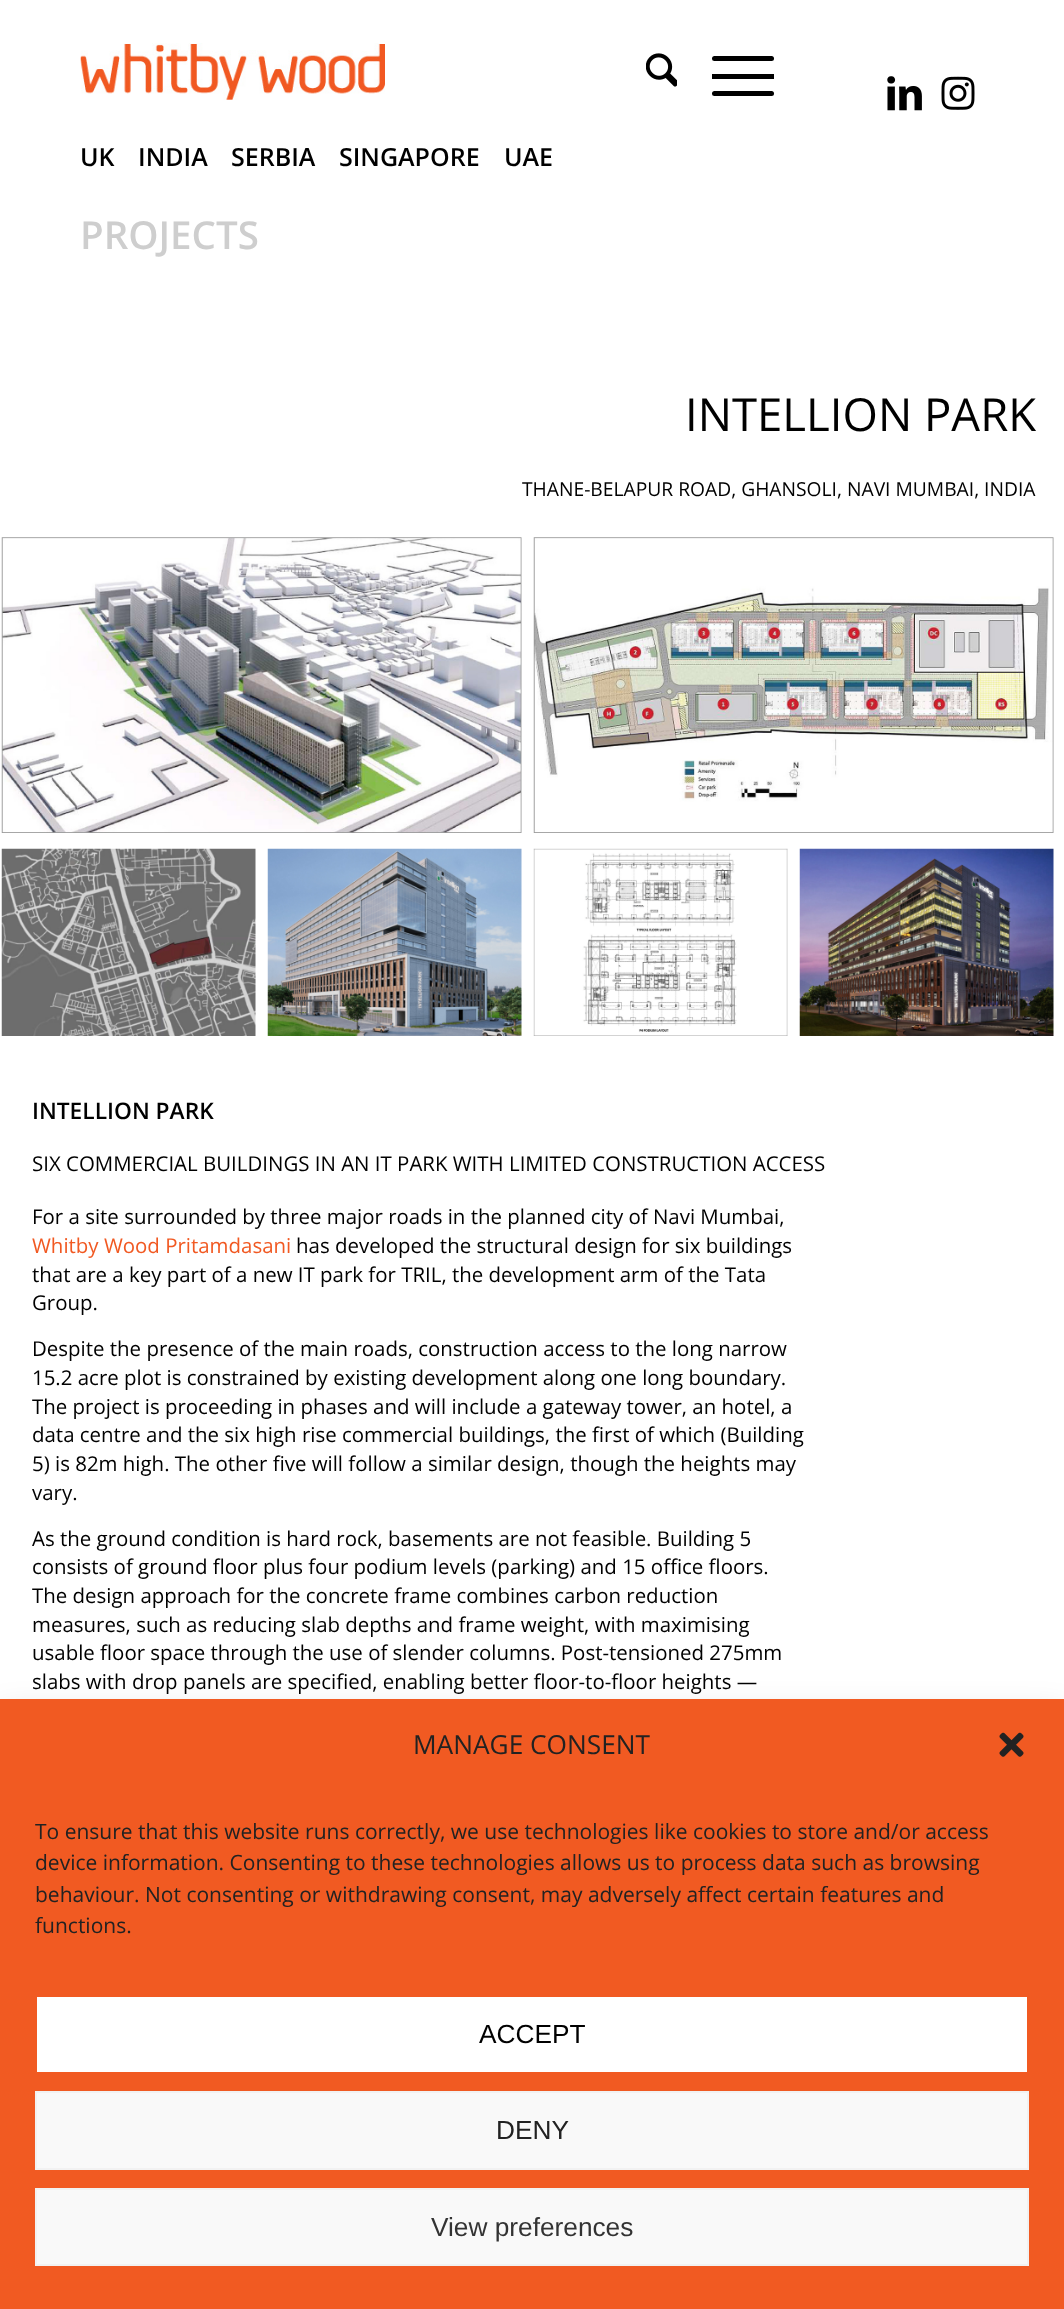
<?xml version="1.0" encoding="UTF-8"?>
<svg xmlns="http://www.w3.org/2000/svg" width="1064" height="2309">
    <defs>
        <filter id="blur1" x="-50%" y="-200%" width="200%" height="500%"><feGaussianBlur stdDeviation="17.5"/></filter>
    </defs>
    <rect width="100%" height="100%" fill="#FFFFFF"/>
    <image x="80" y="43" width="305" height="57" href="img_01.png"/>
    <image x="646" y="53" width="31" height="34" href="img_02.png"/>
    <rect x="712" y="74" width="62" height="5" fill="#000000"/>
    <rect x="712" y="56" width="62" height="5" rx="2.5" fill="#000000"/>
    <rect x="712" y="91" width="62" height="5" rx="2.5" fill="#000000"/>
    <image x="887" y="76" width="35" height="35" href="img_03.png"/>
    <image x="941" y="76" width="34" height="34" href="img_04.png"/>
    <text x="80" y="166" font-family="Open Sans" font-size="25" font-weight="600" fill="#000000">UK</text>
    <text x="138" y="166" font-family="Open Sans" font-size="25" font-weight="600" fill="#000000">INDIA</text>
    <text x="231" y="166" font-family="Open Sans" font-size="25" font-weight="600" fill="#000000">SERBIA</text>
    <text x="339" y="166" font-family="Open Sans" font-size="25" font-weight="600" fill="#000000">SINGAPORE</text>
    <text x="504" y="166" font-family="Open Sans" font-size="25" font-weight="600" fill="#000000">UAE</text>
    <text x="80" y="249" font-family="Open Sans" font-size="38.5" font-weight="600" fill="#CECECE">PROJECTS</text>
    <text x="685" y="431" font-family="Open Sans" font-size="45.5" fill="#000000">INTELLION PARK</text>
    <text x="522" y="496" font-family="Open Sans" font-size="19.25" fill="#000000">THANE-BELAPUR ROAD, GHANSOLI, NAVI MUMBAI, INDIA</text>
    <image x="1" y="537" width="521" height="296" href="img_05.png"/>
    <image x="533" y="537" width="521" height="296" href="img_06.png"/>
    <image x="1" y="848" width="255" height="188" href="img_07.png"/>
    <image x="267" y="848" width="255" height="188" href="img_08.png"/>
    <image x="533" y="848" width="255" height="188" href="img_09.png"/>
    <image x="799" y="848" width="255" height="188" href="img_10.png"/>
    <text x="32" y="1119" font-family="Open Sans" font-size="22.75" font-weight="600" fill="#000000">INTELLION PARK</text>
    <text x="32" y="1171" font-family="Open Sans" font-size="20.45" fill="#000000">SIX COMMERCIAL BUILDINGS IN AN IT PARK WITH LIMITED CONSTRUCTION ACCESS</text>
    <text x="32" y="1224" font-family="Open Sans" font-size="20.45" fill="#000000">For a site surrounded by three major roads in the planned city of Navi Mumbai,</text>
    <text x="32" y="1253" font-family="Open Sans" font-size="20.45" fill="#F15922">Whitby Wood Pritamdasani</text>
    <text x="296" y="1253" font-family="Open Sans" font-size="20.45" fill="#000000">has developed the structural design for six buildings</text>
    <text font-family="Open Sans" font-size="20.45" fill="#000000">
        <tspan x="32" y="1282">that are a key part of a new IT park for TRIL, the development arm of the Tata</tspan>
        <tspan x="32" y="1310">Group.</tspan>
    </text>
    <text font-family="Open Sans" font-size="20.45" fill="#000000">
        <tspan x="32" y="1356">Despite the presence of the main roads, construction access to the long narrow</tspan>
        <tspan x="32" y="1385">15.2 acre plot is constrained by existing development along one long boundary.</tspan>
        <tspan x="32" y="1414">The project is proceeding in phases and will include a gateway tower, an hotel, a</tspan>
        <tspan x="32" y="1442">data centre and the six high rise commercial buildings, the first of which (Building</tspan>
        <tspan x="32" y="1471">5) is 82m high. The other five will follow a similar design, though the heights may</tspan>
        <tspan x="32" y="1500">vary.</tspan>
    </text>
    <text font-family="Open Sans" font-size="20.45" fill="#000000">
        <tspan x="32" y="1546">As the ground condition is hard rock, basements are not feasible. Building 5</tspan>
        <tspan x="32" y="1574">consists of ground floor plus four podium levels (parking) and 15 office floors.</tspan>
        <tspan x="32" y="1603">The design approach for the concrete frame combines carbon reduction</tspan>
        <tspan x="32" y="1632">measures, such as reducing slab depths and frame weight, with maximising</tspan>
        <tspan x="32" y="1660">usable floor space through the use of slender columns. Post-tensioned 275mm</tspan>
        <tspan x="32" y="1689">slabs with drop panels are specified, enabling better floor-to-floor heights —</tspan>
    </text>
    <rect x="0" y="1717" width="1064" height="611" fill="#000000" fill-opacity="0.19" filter="url(#blur1)"/>
    <rect x="0" y="1699" width="1064" height="610" fill="#F15A22"/>
    <text x="413" y="1754" font-family="Open Sans" font-size="26.25" fill="#222222">MANAGE CONSENT</text>
    <image x="999" y="1732" width="25" height="25" href="img_11.png"/>
    <text font-family="Open Sans" font-size="21" fill="#222222">
        <tspan x="35" y="1839">To ensure that this website runs correctly, we use technologies like cookies to store and/or access</tspan>
        <tspan x="35" y="1870">device information. Consenting to these technologies allows us to process data such as browsing</tspan>
        <tspan x="35" y="1902">behaviour. Not consenting or withdrawing consent, may adversely affect certain features and</tspan>
        <tspan x="35" y="1933">functions.</tspan>
    </text>
    <rect x="37" y="1997" width="990" height="75" fill="#FFFFFF"/>
    <text x="479" y="2043" font-family="Liberation Sans" font-size="26.25" fill="#000000">ACCEPT</text>
    <rect x="36" y="2092" width="992" height="77" fill="#F9F9F9" stroke="#F2F2F2" stroke-width="2"/>
    <text x="496" y="2139" font-family="Liberation Sans" font-size="26.25" fill="#222222">DENY</text>
    <rect x="36" y="2189" width="992" height="76" fill="#F9F9F9" stroke="#F2F2F2" stroke-width="2"/>
    <text x="431" y="2236" font-family="Liberation Sans" font-size="26.25" fill="#333333">View preferences</text>
</svg>
